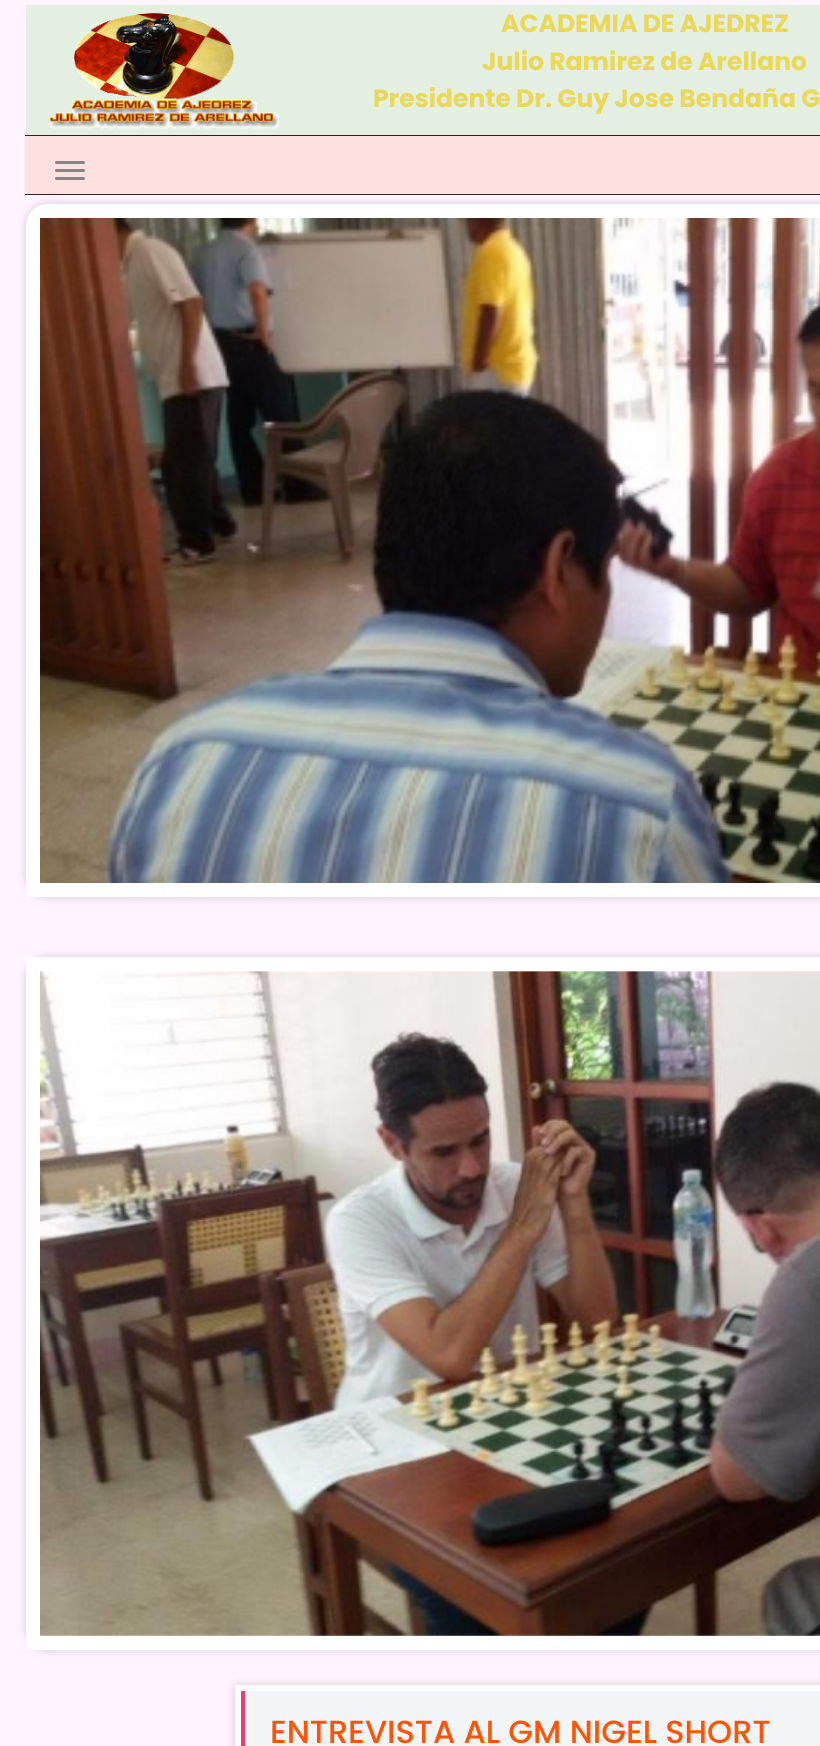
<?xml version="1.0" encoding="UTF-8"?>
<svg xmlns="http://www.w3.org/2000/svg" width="820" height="1746">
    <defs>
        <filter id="blur1" x="-50%" y="-200%" width="200%" height="500%"><feGaussianBlur stdDeviation="4"/></filter>
    </defs>
    <rect width="100%" height="100%" fill="#FFF4FF"/>
    <rect x="26" y="5" width="794" height="130" fill="#E2EFE1"/>
    <image x="49" y="13" width="231" height="116" href="img_01.png"/>
    <text x="501" y="32" font-family="Poppins" font-size="25" font-weight="700" fill="#EBD758">ACADEMIA DE AJEDREZ</text>
    <text x="482" y="70" font-family="Poppins" font-size="25" font-weight="700" fill="#EBD758">Julio Ramirez de Arellano</text>
    <text x="373" y="107" font-family="Poppins" font-size="25" font-weight="700" fill="#EBD758">Presidente Dr. Guy Jose Bendaña G</text>
    <rect x="25" y="203" width="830" height="695" rx="23" fill="#000000" fill-opacity="0.15" filter="url(#blur1)"/>
    <rect x="25" y="136" width="795" height="58" fill="#FEE0DE"/>
    <rect x="25" y="135" width="795" height="1" fill="#212529"/>
    <rect x="25" y="194" width="795" height="1" fill="#212529"/>
    <rect x="55" y="161" width="30" height="3" rx="1.5" fill="#858585"/>
    <rect x="55" y="169" width="30" height="3" rx="1.5" fill="#858585"/>
    <rect x="55" y="177" width="30" height="3" rx="1.5" fill="#858585"/>
    <path d="M 48 208 H 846 V 893 H 30 V 226 C 30 216 38 208 48 208 Z" fill="#FFFFFF" stroke="#FFFFFF" stroke-width="8"/>
    <image x="40" y="218" width="780" height="665" href="img_02.png"/>
    <rect x="25" y="956" width="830" height="695" rx="23" fill="#000000" fill-opacity="0.15" filter="url(#blur1)"/>
    <rect x="26" y="957" width="794" height="693" fill="#FFFFFF"/>
    <image x="40" y="971" width="780" height="665" href="img_03.png"/>
    <rect x="234" y="1684" width="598" height="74" fill="#000000" fill-opacity="0.15" filter="url(#blur1)"/>
    <rect x="235" y="1685" width="585" height="61" fill="#FFFFFF"/>
    <rect x="245" y="1691" width="575" height="55" fill="#F2F4F5"/>
    <rect x="241" y="1691" width="4" height="55" fill="#ED3974"/>
    <text x="270" y="1743" font-family="Poppins" font-size="32" font-weight="500" fill="#FE5406">ENTREVISTA AL GM NIGEL SHORT</text>
</svg>
